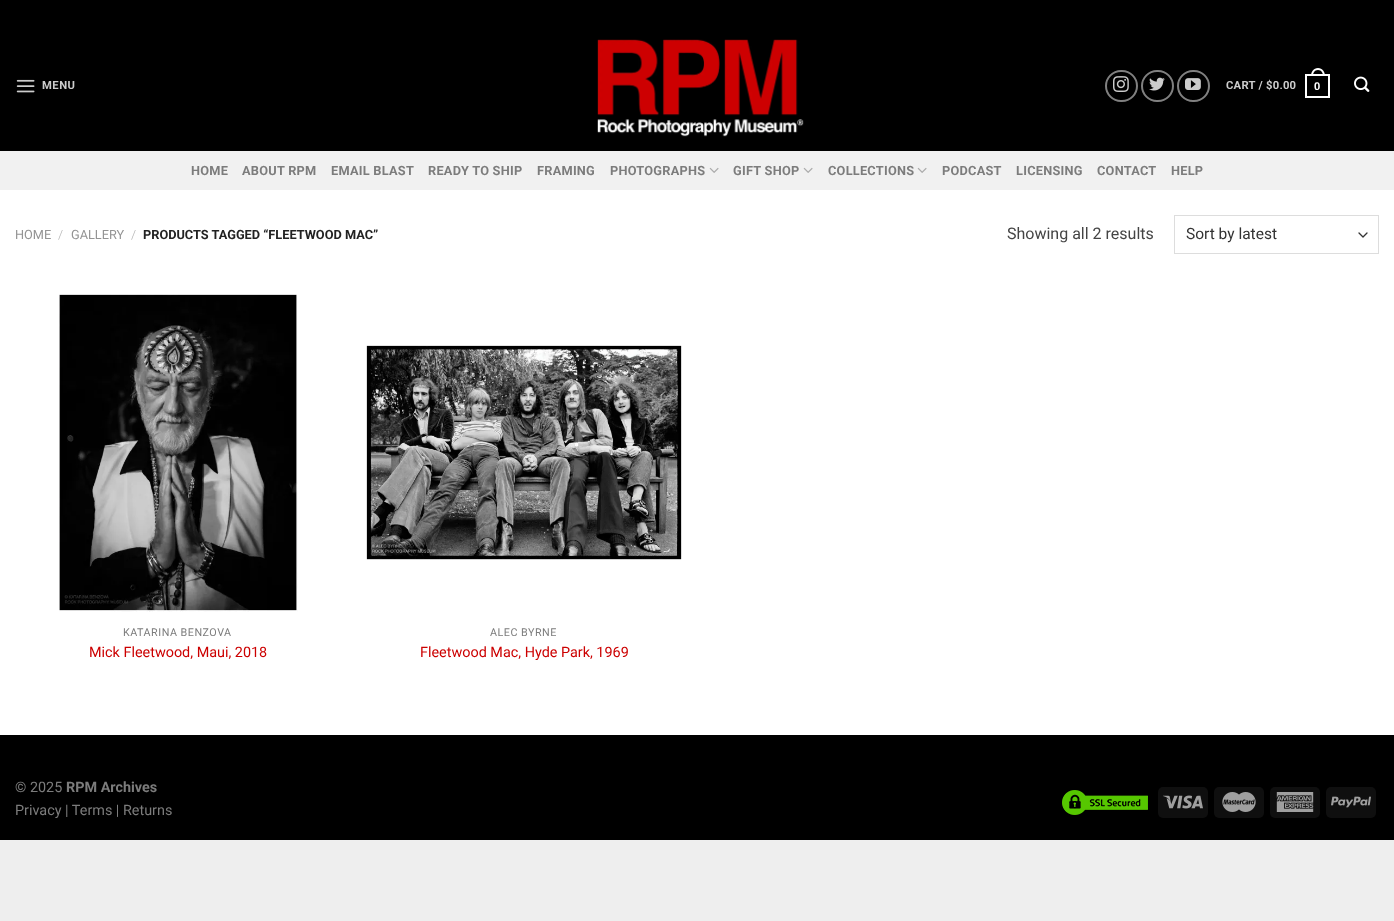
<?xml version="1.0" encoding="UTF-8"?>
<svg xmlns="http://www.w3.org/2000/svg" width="1394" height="921">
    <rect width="100%" height="100%" fill="#EEEEEE"/>
    <rect x="0" y="190" width="1394" height="545" fill="#FFFFFF"/>
    <rect x="0" y="0" width="1394" height="151" fill="#000000"/>
    <image x="16" y="79" width="19" height="14" href="img_01.png"/>
    <text x="42" y="89" font-family="Roboto" font-size="11.25" font-weight="700" letter-spacing="0.5" fill="#CCCCCC">MENU</text>
    <image x="597" y="39" width="207" height="98" href="img_02.png"/>
    <rect x="1106" y="71" width="31" height="30" rx="15" fill="none" stroke="#808080" stroke-width="2"/>
    <image x="1113" y="76" width="16" height="16" href="img_03.png"/>
    <rect x="1142" y="71" width="31" height="30" rx="15" fill="none" stroke="#808080" stroke-width="2"/>
    <image x="1149" y="77" width="16" height="14" href="img_04.png"/>
    <rect x="1178" y="71" width="31" height="30" rx="15" fill="none" stroke="#808080" stroke-width="2"/>
    <image x="1185" y="78" width="16" height="12" href="img_05.png"/>
    <text x="1226" y="89" font-family="Roboto" font-size="11.25" font-weight="700" letter-spacing="0.25" fill="#CCCCCC">CART / $0.00</text>
    <rect x="1306" y="75" width="23" height="22" fill="none" stroke="#FFFFFF" stroke-width="2"/>
    <path d="M 1318 68 C 1322.5 68 1325 72 1325 76 H 1311 C 1311 72 1313.5 68 1318 68 Z M 1318 70 C 1321.5 70 1323 73 1323 76 H 1313 C 1313 73 1314.5 70 1318 70 Z" fill="#FFFFFF" fill-rule="evenodd"/>
    <text x="1314" y="90" font-family="Liberation Sans" font-size="11.25" font-weight="700" letter-spacing="0.25" fill="#FFFFFF">0</text>
    <image x="1354" y="76" width="16" height="16" href="img_06.png"/>
    <rect x="0" y="151" width="1394" height="39" fill="#F1F1F1"/>
    <text x="191" y="175" font-family="Roboto" font-size="12.75" font-weight="700" letter-spacing="0.25" fill="#7C7C7C">HOME</text>
    <text x="242" y="175" font-family="Roboto" font-size="12.75" font-weight="700" letter-spacing="0.25" fill="#7C7C7C">ABOUT RPM</text>
    <text x="331" y="175" font-family="Roboto" font-size="12.75" font-weight="700" letter-spacing="0.25" fill="#7C7C7C">EMAIL BLAST</text>
    <text x="428" y="175" font-family="Roboto" font-size="12.75" font-weight="700" letter-spacing="0.25" fill="#7C7C7C">READY TO SHIP</text>
    <text x="537" y="175" font-family="Roboto" font-size="12.75" font-weight="700" letter-spacing="0.25" fill="#7C7C7C">FRAMING</text>
    <text x="610" y="175" font-family="Roboto" font-size="12.75" font-weight="700" letter-spacing="0.25" fill="#7C7C7C">PHOTOGRAPHS</text>
    <image x="709" y="167" width="10" height="6" href="img_07.png"/>
    <text x="733" y="175" font-family="Roboto" font-size="12.75" font-weight="700" letter-spacing="0.25" fill="#7C7C7C">GIFT SHOP</text>
    <image x="803" y="167" width="10" height="6" href="img_07.png"/>
    <text x="828" y="175" font-family="Roboto" font-size="12.75" font-weight="700" letter-spacing="0.25" fill="#7C7C7C">COLLECTIONS</text>
    <image x="917" y="167" width="10" height="6" href="img_07.png"/>
    <text x="942" y="175" font-family="Roboto" font-size="12.75" font-weight="700" letter-spacing="0.25" fill="#7C7C7C">PODCAST</text>
    <text x="1016" y="175" font-family="Roboto" font-size="12.75" font-weight="700" letter-spacing="0.25" fill="#7C7C7C">LICENSING</text>
    <text x="1097" y="175" font-family="Roboto" font-size="12.75" font-weight="700" letter-spacing="0.25" fill="#7C7C7C">CONTACT</text>
    <text x="1171" y="175" font-family="Roboto" font-size="12.75" font-weight="700" letter-spacing="0.25" fill="#7C7C7C">HELP</text>
    <text x="15" y="239" font-family="Roboto" font-size="12.75" fill="#949494">HOME</text>
    <text x="58" y="239" font-family="Roboto" font-size="12.75" font-weight="300" fill="#B2B2B2">/</text>
    <text x="71" y="239" font-family="Roboto" font-size="12.75" fill="#949494">GALLERY</text>
    <text x="131" y="239" font-family="Roboto" font-size="12.75" font-weight="300" fill="#B2B2B2">/</text>
    <text x="143" y="239" font-family="Roboto" font-size="12.75" font-weight="700" fill="#222222">PRODUCTS TAGGED “FLEETWOOD MAC”</text>
    <text x="1007" y="239" font-family="Roboto" font-size="16" fill="#444444">Showing all 2 results</text>
    <path d="M 1359 233 L 1363 237 L 1367 233" fill="none" stroke="#333333" stroke-width="1.3" stroke-linecap="round" stroke-linejoin="round"/>
    <rect x="1174.5" y="215.5" width="204" height="38" fill="none" stroke="#DDDDDD"/>
    <text x="1186" y="239" font-family="Roboto" font-size="15.5" fill="#333333">Sort by latest</text>
    <image x="59" y="294" width="239" height="318" href="img_08.png"/>
    <text x="123" y="636" font-family="Roboto" font-size="10.75" letter-spacing="0.5" fill="#7C7C7C">KATARINA BENZOVA</text>
    <text x="89" y="657" font-family="Roboto" font-size="14.4" fill="#CC0000">Mick Fleetwood, Maui, 2018</text>
    <image x="366" y="345" width="316" height="215" href="img_09.png"/>
    <text x="490" y="636" font-family="Roboto" font-size="10.75" letter-spacing="0.5" fill="#7C7C7C">ALEC BYRNE</text>
    <text x="420" y="657" font-family="Roboto" font-size="14.4" fill="#CC0000">Fleetwood Mac, Hyde Park, 1969</text>
    <rect x="0" y="735" width="1394" height="105" fill="#000000"/>
    <text x="15" y="792" font-family="Roboto" font-size="14.4" fill="#7C7C7C">© 2025</text>
    <text x="66" y="792" font-family="Roboto" font-size="14.4" font-weight="700" fill="#7C7C7C">RPM Archives</text>
    <text x="15" y="815" font-family="Roboto" font-size="14.4" fill="#7C7C7C">Privacy | Terms | Returns</text>
    <image x="1062" y="790" width="86" height="25" href="img_10.png"/>
    <rect x="1158" y="787" width="50" height="31" rx="5" fill="#0F0F0F"/>
    <image x="1163" y="795" width="40" height="14" href="img_11.png"/>
    <rect x="1214" y="787" width="50" height="31" rx="5" fill="#0F0F0F"/>
    <image x="1222" y="792" width="34" height="20" href="img_12.png"/>
    <rect x="1270" y="787" width="50" height="31" rx="5" fill="#0F0F0F"/>
    <image x="1276" y="792" width="38" height="20" href="img_13.png"/>
    <rect x="1326" y="787" width="50" height="31" rx="5" fill="#0F0F0F"/>
    <image x="1331" y="796" width="40" height="12" href="img_14.png"/>
</svg>
